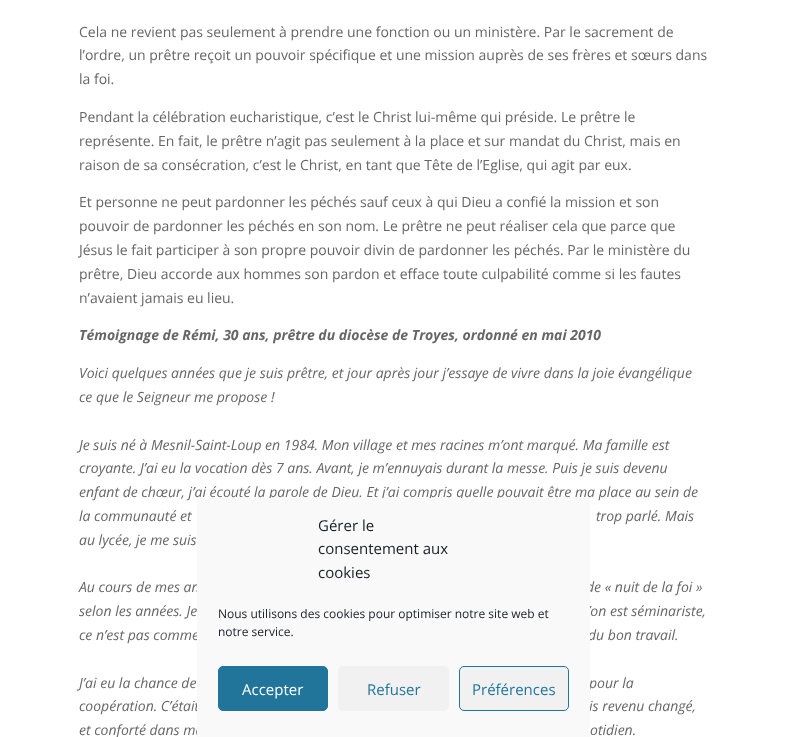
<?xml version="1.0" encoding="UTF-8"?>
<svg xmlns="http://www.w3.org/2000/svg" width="787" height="737">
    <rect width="100%" height="100%" fill="#FFFFFF"/>
    <text font-family="Open Sans" font-size="14" fill="#666666">
        <tspan x="79" y="37">Cela ne revient pas seulement à prendre une fonction ou un ministère. Par le sacrement de</tspan>
        <tspan x="79" y="60">l’ordre, un prêtre reçoit un pouvoir spécifique et une mission auprès de ses frères et sœurs dans</tspan>
        <tspan x="79" y="84">la foi.</tspan>
    </text>
    <text font-family="Open Sans" font-size="14" fill="#666666">
        <tspan x="79" y="122">Pendant la célébration eucharistique, c’est le Christ lui-même qui préside. Le prêtre le</tspan>
        <tspan x="79" y="146">représente. En fait, le prêtre n’agit pas seulement à la place et sur mandat du Christ, mais en</tspan>
        <tspan x="79" y="170">raison de sa consécration, c’est le Christ, en tant que Tête de l’Eglise, qui agit par eux.</tspan>
    </text>
    <text font-family="Open Sans" font-size="14" fill="#666666">
        <tspan x="79" y="207">Et personne ne peut pardonner les péchés sauf ceux à qui Dieu a confié la mission et son</tspan>
        <tspan x="79" y="231">pouvoir de pardonner les péchés en son nom. Le prêtre ne peut réaliser cela que parce que</tspan>
        <tspan x="79" y="255">Jésus le fait participer à son propre pouvoir divin de pardonner les péchés. Par le ministère du</tspan>
        <tspan x="79" y="279">prêtre, Dieu accorde aux hommes son pardon et efface toute culpabilité comme si les fautes</tspan>
        <tspan x="79" y="303">n’avaient jamais eu lieu.</tspan>
    </text>
    <text x="79" y="340" font-family="Open Sans" font-size="14" font-weight="700" font-style="italic" fill="#666666">Témoignage de Rémi, 30 ans, prêtre du diocèse de Troyes, ordonné en mai 2010</text>
    <text font-family="Open Sans" font-size="14" font-style="italic" fill="#666666">
        <tspan x="79" y="378">Voici quelques années que je suis prêtre, et jour après jour j’essaye de vivre dans la joie évangélique</tspan>
        <tspan x="79" y="402">ce que le Seigneur me propose !</tspan>
    </text>
    <text font-family="Open Sans" font-size="14" font-style="italic" fill="#666666">
        <tspan x="79" y="450">Je suis né à Mesnil-Saint-Loup en 1984. Mon village et mes racines m’ont marqué. Ma famille est</tspan>
        <tspan x="79" y="473">croyante. J’ai eu la vocation dès 7 ans. Avant, je m’ennuyais durant la messe. Puis je suis devenu</tspan>
        <tspan x="79" y="497">enfant de chœur, j’ai écouté la parole de Dieu. Et j’ai compris quelle pouvait être ma place au sein de</tspan>
        <tspan x="79" y="521">la communauté et</tspan>
    </text>
    <text x="596" y="521" font-family="Open Sans" font-size="14" font-style="italic" fill="#666666">trop parlé. Mais</text>
    <text x="79" y="545" font-family="Open Sans" font-size="14" font-style="italic" fill="#666666">au lycée, je me suis</text>
    <text x="79" y="592" font-family="Open Sans" font-size="14" font-style="italic" fill="#666666">Au cours de mes an</text>
    <text x="586" y="592" font-family="Open Sans" font-size="14" font-style="italic" fill="#666666">de « nuit de la foi »</text>
    <text x="79" y="616" font-family="Open Sans" font-size="14" font-style="italic" fill="#666666">selon les années. Je</text>
    <text x="588" y="616" font-family="Open Sans" font-size="14" font-style="italic" fill="#666666">’on est séminariste,</text>
    <text x="79" y="640" font-family="Open Sans" font-size="14" font-style="italic" fill="#666666">ce n’est pas comme</text>
    <text x="588" y="640" font-family="Open Sans" font-size="14" font-style="italic" fill="#666666">du bon travail.</text>
    <text x="79" y="688" font-family="Open Sans" font-size="14" font-style="italic" fill="#666666">J’ai eu la chance de</text>
    <text x="589" y="688" font-family="Open Sans" font-size="14" font-style="italic" fill="#666666">pour la</text>
    <text x="79" y="711" font-family="Open Sans" font-size="14" font-style="italic" fill="#666666">coopération. C’était</text>
    <text x="589" y="711" font-family="Open Sans" font-size="14" font-style="italic" fill="#666666">is revenu changé,</text>
    <text x="79" y="735" font-family="Open Sans" font-size="14" font-style="italic" fill="#666666">et conforté dans ma</text>
    <text x="590" y="735" font-family="Open Sans" font-size="14" font-style="italic" fill="#666666">otidien.</text>
    <rect x="197" y="498" width="393" height="239" fill="#F9F9F9"/>
    <text font-family="Open Sans" font-size="15" fill="#191E23">
        <tspan x="318" y="531">Gérer le</tspan>
        <tspan x="318" y="554">consentement aux</tspan>
        <tspan x="318" y="578">cookies</tspan>
    </text>
    <text font-family="Open Sans" font-size="12" fill="#191E23">
        <tspan x="218" y="618">Nous utilisons des cookies pour optimiser notre site web et</tspan>
        <tspan x="218" y="636">notre service.</tspan>
    </text>
    <rect x="218.5" y="666.5" width="109" height="44" rx="4.5" fill="#21759B" stroke="#21759B"/>
    <text x="242" y="695" font-family="Open Sans" font-size="15" fill="#FFFFFF">Accepter</text>
    <rect x="338" y="666" width="111" height="45" rx="5" fill="#F1F1F1"/>
    <text x="367" y="695" font-family="Open Sans" font-size="15" fill="#21759B">Refuser</text>
    <rect x="459.5" y="666.5" width="109" height="44" rx="4.5" fill="#F1F1F1" stroke="#21759B"/>
    <text x="472" y="695" font-family="Open Sans" font-size="15" fill="#21759B">Préférences</text>
</svg>
